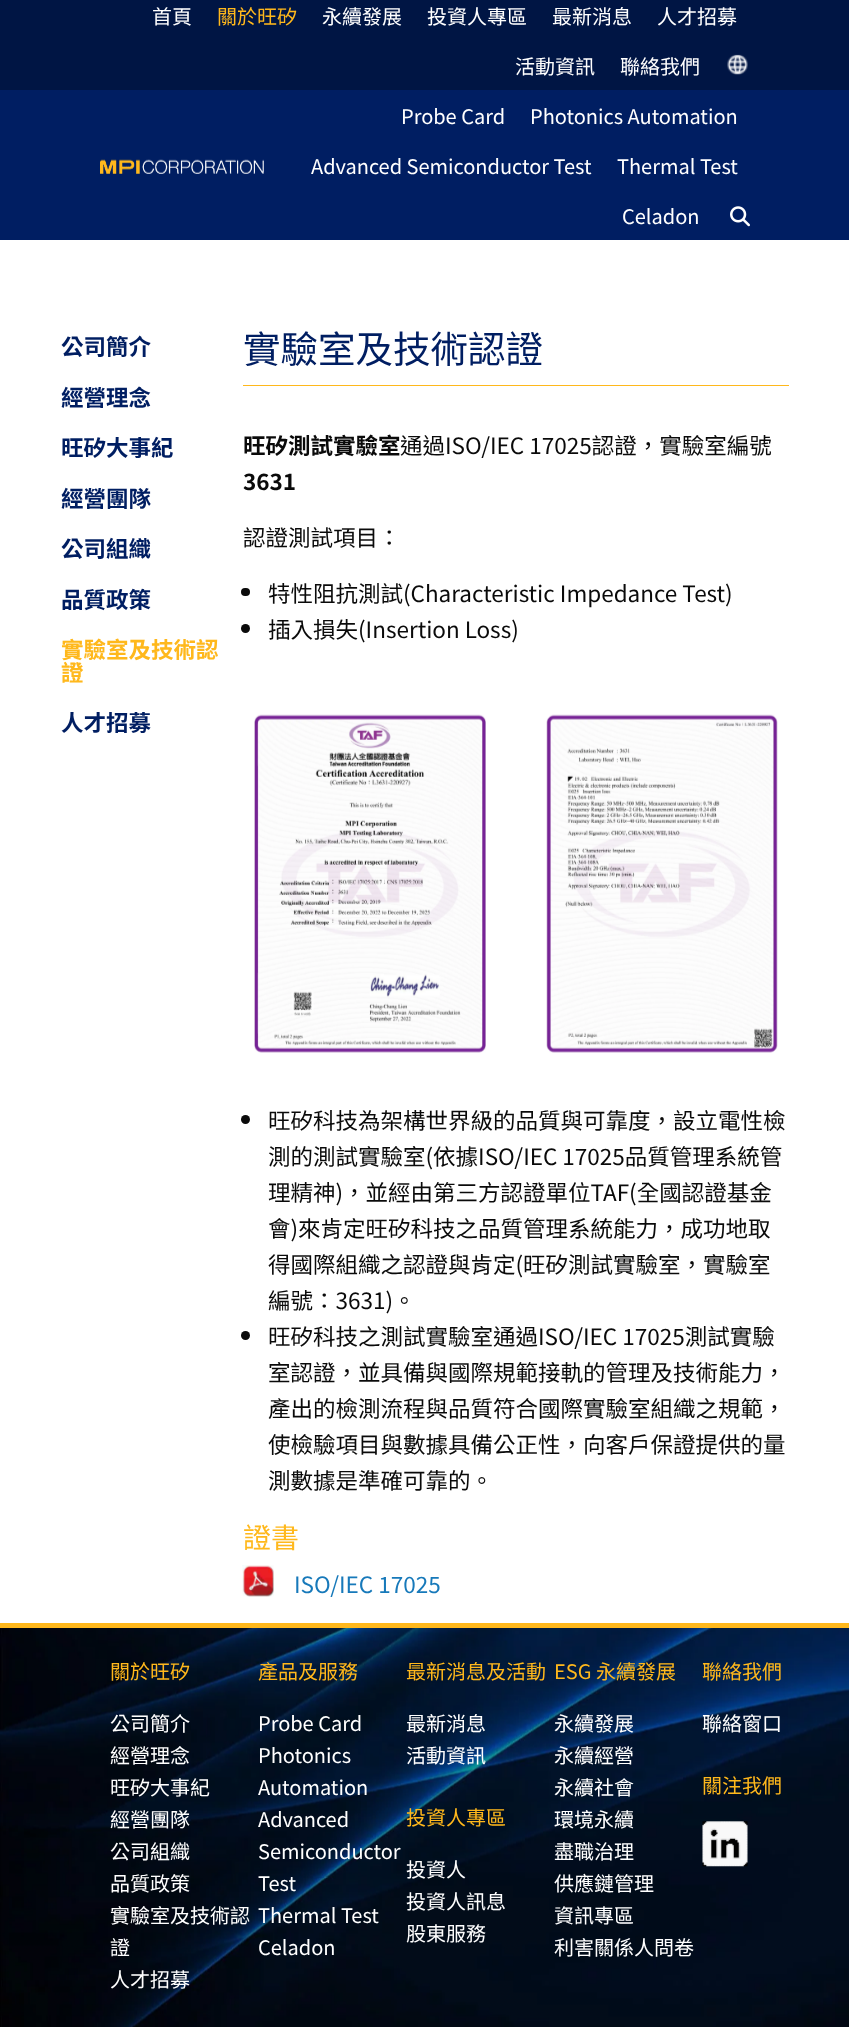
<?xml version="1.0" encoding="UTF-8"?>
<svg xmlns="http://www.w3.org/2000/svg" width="849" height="2027">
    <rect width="100%" height="100%" fill="#FFFFFF"/>
    <rect x="0" y="0" width="849" height="90" fill="#001544"/>
    <text x="152" y="24" font-family="Noto Sans TC" font-size="20" fill="#FFFFFF">首頁</text>
    <text x="217" y="24" font-family="Noto Sans TC" font-size="20" fill="#FFB81C">關於旺矽</text>
    <text x="322" y="24" font-family="Noto Sans TC" font-size="20" fill="#FFFFFF">永續發展</text>
    <text x="427" y="24" font-family="Noto Sans TC" font-size="20" fill="#FFFFFF">投資人專區</text>
    <text x="552" y="24" font-family="Noto Sans TC" font-size="20" fill="#FFFFFF">最新消息</text>
    <text x="657" y="24" font-family="Noto Sans TC" font-size="20" fill="#FFFFFF">人才招募</text>
    <text x="515" y="74" font-family="Noto Sans TC" font-size="20" fill="#FFFFFF">活動資訊</text>
    <text x="620" y="74" font-family="Noto Sans TC" font-size="20" fill="#FFFFFF">聯絡我們</text>
    <image x="727" y="54" width="21" height="21" href="img_01.png"/>
    <rect x="0" y="90" width="849" height="150" fill="#001E62"/>
    <image x="100" y="159" width="164" height="15" href="img_02.png"/>
    <text x="401" y="124" font-family="Noto Sans TC" font-size="20" fill="#FFFFFF">Probe Card</text>
    <text x="530" y="124" font-family="Noto Sans TC" font-size="20" fill="#FFFFFF">Photonics Automation</text>
    <text x="311" y="174" font-family="Noto Sans TC" font-size="20" fill="#FFFFFF">Advanced Semiconductor Test</text>
    <text x="617" y="174" font-family="Noto Sans TC" font-size="20" fill="#FFFFFF">Thermal Test</text>
    <text x="622" y="224" font-family="Noto Sans TC" font-size="20" fill="#FFFFFF">Celadon</text>
    <image x="730" y="206" width="20" height="21" href="img_03.png"/>
    <text x="61" y="355" font-family="Noto Sans TC" font-size="22.5" font-weight="700" fill="#001E62">公司簡介</text>
    <text x="61" y="406" font-family="Noto Sans TC" font-size="22.5" font-weight="700" fill="#001E62">經營理念</text>
    <text x="61" y="456" font-family="Noto Sans TC" font-size="22.5" font-weight="700" fill="#001E62">旺矽大事紀</text>
    <text x="61" y="507" font-family="Noto Sans TC" font-size="22.5" font-weight="700" fill="#001E62">經營團隊</text>
    <text x="61" y="557" font-family="Noto Sans TC" font-size="22.5" font-weight="700" fill="#001E62">公司組織</text>
    <text x="61" y="608" font-family="Noto Sans TC" font-size="22.5" font-weight="700" fill="#001E62">品質政策</text>
    <text font-family="Noto Sans TC" font-size="22.5" font-weight="700" fill="#FFB81C">
        <tspan x="61" y="658">實驗室及技術認</tspan>
        <tspan x="61" y="681">證</tspan>
    </text>
    <text x="61" y="731" font-family="Noto Sans TC" font-size="22.5" font-weight="700" fill="#001E62">人才招募</text>
    <rect x="243" y="385" width="546" height="1" fill="#FFB81C"/>
    <text x="243" y="363" font-family="Noto Sans TC" font-size="37.5" fill="#001E62">實驗室及技術認證</text>
    <text x="243" y="454" font-family="Noto Sans TC" font-size="22.5" font-weight="700" fill="#0A0A0A">旺矽測試實驗室</text>
    <text x="400" y="454" font-family="Noto Sans TC" font-size="22.5" fill="#0A0A0A">通過ISO/IEC 17025認證，實驗室編號</text>
    <text x="243" y="490" font-family="Noto Sans TC" font-size="22.5" font-weight="700" fill="#0A0A0A">3631</text>
    <text x="243" y="546" font-family="Noto Sans TC" font-size="22.5" fill="#0A0A0A">認證測試項目：</text>
    <rect x="241" y="588" width="9" height="8" rx="4" fill="#0A0A0A"/>
    <text x="268" y="602" font-family="Noto Sans TC" font-size="22.5" fill="#0A0A0A">特性阻抗測試(Characteristic Impedance Test)</text>
    <circle cx="245.5" cy="628.5" r="4.5" fill="#0A0A0A"/>
    <text x="268" y="638" font-family="Noto Sans TC" font-size="22.5" fill="#0A0A0A">插入損失(Insertion Loss)</text>
    <image x="254" y="714" width="232" height="339" href="img_04.png"/>
    <image x="546" y="714" width="232" height="339" href="img_05.png"/>
    <circle cx="245.5" cy="1119.5" r="4.5" fill="#0A0A0A"/>
    <text font-family="Noto Sans TC" font-size="22.5" fill="#0A0A0A">
        <tspan x="268" y="1129">旺矽科技為架構世界級的品質與可靠度，設立電性檢</tspan>
        <tspan x="268" y="1165">測的測試實驗室(依據ISO/IEC 17025品質管理系統管</tspan>
        <tspan x="268" y="1201">理精神)，並經由第三方認證單位TAF(全國認證基金</tspan>
        <tspan x="268" y="1237">會)來肯定旺矽科技之品質管理系統能力，成功地取</tspan>
        <tspan x="268" y="1273">得國際組織之認證與肯定(旺矽測試實驗室，實驗室</tspan>
        <tspan x="268" y="1309">編號：3631)。</tspan>
    </text>
    <circle cx="245.5" cy="1335.5" r="4.5" fill="#0A0A0A"/>
    <text font-family="Noto Sans TC" font-size="22.5" fill="#0A0A0A">
        <tspan x="268" y="1345">旺矽科技之測試實驗室通過ISO/IEC 17025測試實驗</tspan>
        <tspan x="268" y="1381">室認證，並具備與國際規範接軌的管理及技術能力，</tspan>
        <tspan x="268" y="1417">產出的檢測流程與品質符合國際實驗室組織之規範，</tspan>
        <tspan x="268" y="1453">使檢驗項目與數據具備公正性，向客戶保證提供的量</tspan>
        <tspan x="268" y="1489">測數據是準確可靠的。</tspan>
    </text>
    <text x="243" y="1548" font-family="Noto Sans TC" font-size="28" fill="#FFB81C">證書</text>
    <image x="242" y="1565" width="32" height="32" href="img_06.png"/>
    <text x="294" y="1593" font-family="Noto Sans TC" font-size="22.5" fill="#1779BA">ISO/IEC 17025</text>
    <image x="0" y="1628" width="849" height="399" href="img_07.png"/>
    <rect x="0" y="1623" width="849" height="5" fill="#FFB81C"/>
    <text x="110" y="1679" font-family="Noto Sans TC" font-size="20" fill="#FFB81C">關於旺矽</text>
    <text font-family="Noto Sans TC" font-size="20" fill="#FFFFFF">
        <tspan x="110" y="1731">公司簡介</tspan>
        <tspan x="110" y="1763">經營理念</tspan>
        <tspan x="110" y="1795">旺矽大事紀</tspan>
        <tspan x="110" y="1827">經營團隊</tspan>
        <tspan x="110" y="1859">公司組織</tspan>
        <tspan x="110" y="1891">品質政策</tspan>
        <tspan x="110" y="1923">實驗室及技術認</tspan>
        <tspan x="110" y="1955">證</tspan>
        <tspan x="110" y="1987">人才招募</tspan>
    </text>
    <text x="258" y="1679" font-family="Noto Sans TC" font-size="20" fill="#FFB81C">產品及服務</text>
    <text font-family="Noto Sans TC" font-size="20" fill="#FFFFFF">
        <tspan x="258" y="1731">Probe Card</tspan>
        <tspan x="258" y="1763">Photonics</tspan>
        <tspan x="258" y="1795">Automation</tspan>
        <tspan x="258" y="1827">Advanced</tspan>
        <tspan x="258" y="1859">Semiconductor</tspan>
        <tspan x="258" y="1891">Test</tspan>
        <tspan x="258" y="1923">Thermal Test</tspan>
        <tspan x="258" y="1955">Celadon</tspan>
    </text>
    <text x="406" y="1679" font-family="Noto Sans TC" font-size="20" fill="#FFB81C">最新消息及活動</text>
    <text font-family="Noto Sans TC" font-size="20" fill="#FFFFFF">
        <tspan x="406" y="1731">最新消息</tspan>
        <tspan x="406" y="1763">活動資訊</tspan>
    </text>
    <text x="406" y="1825" font-family="Noto Sans TC" font-size="20" fill="#FFB81C">投資人專區</text>
    <text font-family="Noto Sans TC" font-size="20" fill="#FFFFFF">
        <tspan x="406" y="1877">投資人</tspan>
        <tspan x="406" y="1909">投資人訊息</tspan>
        <tspan x="406" y="1941">股東服務</tspan>
    </text>
    <text x="554" y="1679" font-family="Noto Sans TC" font-size="20" fill="#FFB81C">ESG 永續發展</text>
    <text font-family="Noto Sans TC" font-size="20" fill="#FFFFFF">
        <tspan x="554" y="1731">永續發展</tspan>
        <tspan x="554" y="1763">永續經營</tspan>
        <tspan x="554" y="1795">永續社會</tspan>
        <tspan x="554" y="1827">環境永續</tspan>
        <tspan x="554" y="1859">盡職治理</tspan>
        <tspan x="554" y="1891">供應鏈管理</tspan>
        <tspan x="554" y="1923">資訊專區</tspan>
        <tspan x="554" y="1955">利害關係人問卷</tspan>
    </text>
    <text x="702" y="1679" font-family="Noto Sans TC" font-size="20" fill="#FFB81C">聯絡我們</text>
    <text x="702" y="1731" font-family="Noto Sans TC" font-size="20" fill="#FFFFFF">聯絡窗口</text>
    <text x="702" y="1793" font-family="Noto Sans TC" font-size="20" fill="#FFB81C">關注我們</text>
    <image x="702" y="1821" width="46" height="46" href="img_08.png"/>
</svg>
